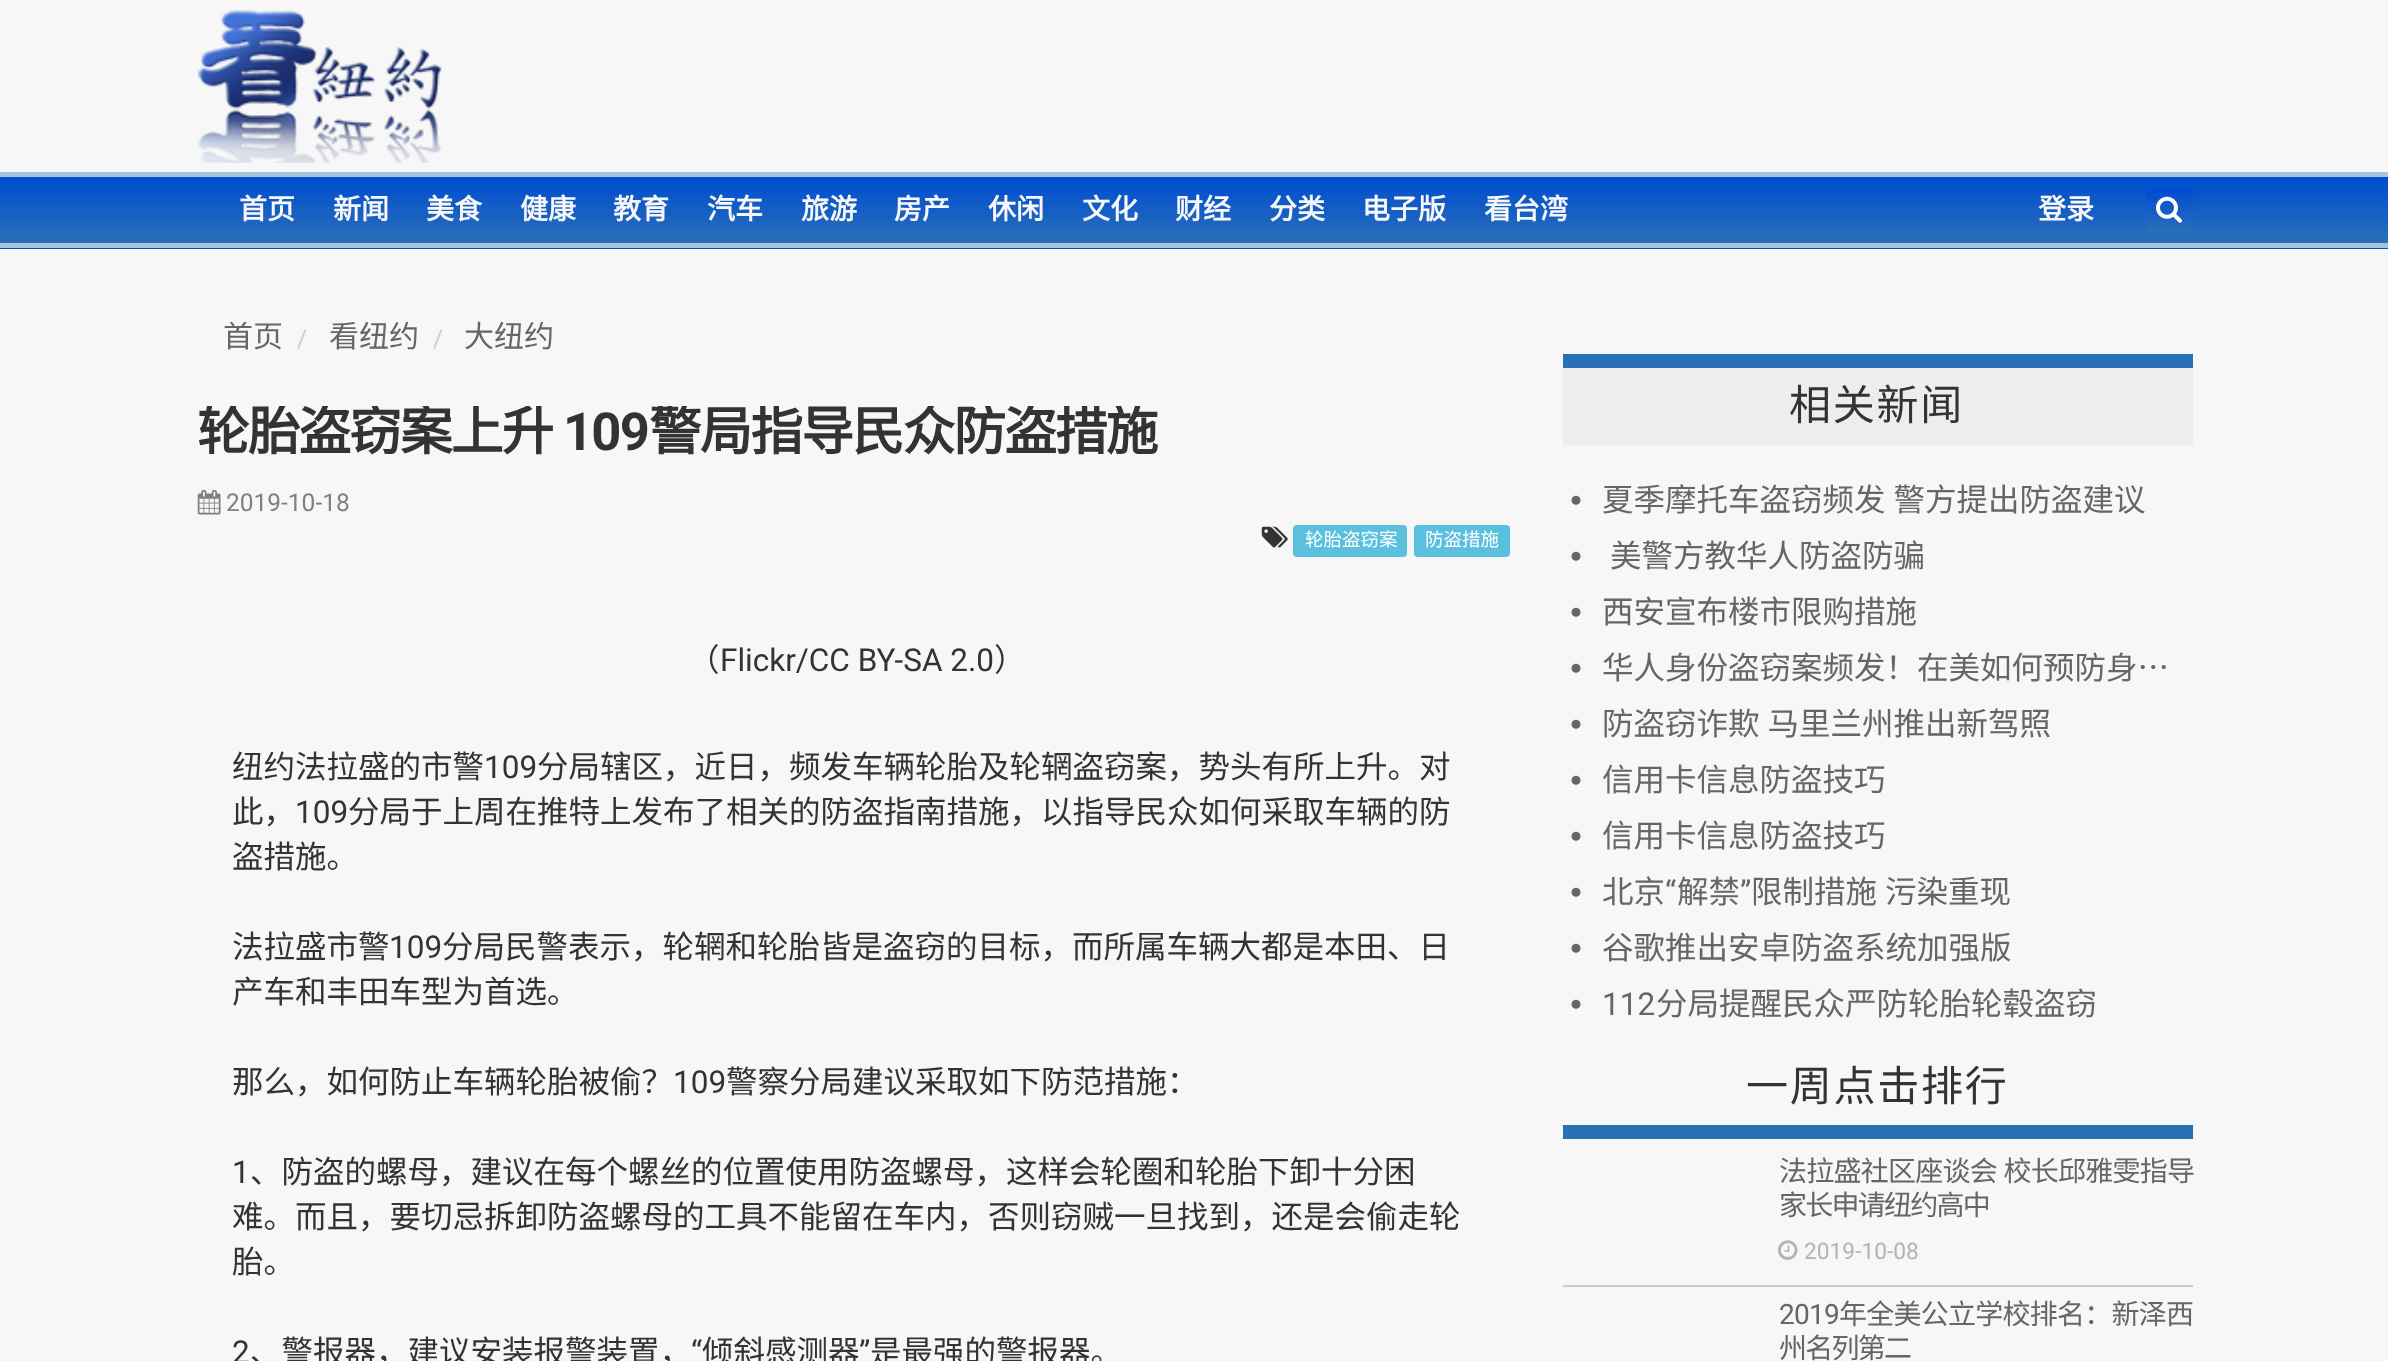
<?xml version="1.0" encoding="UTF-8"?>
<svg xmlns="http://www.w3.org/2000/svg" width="2388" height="1361">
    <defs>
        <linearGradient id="g1" gradientUnits="userSpaceOnUse" x1="1194" y1="177" x2="1194" y2="243"><stop offset="0" stop-color="#004CD1"/><stop offset="1" stop-color="#2970B7"/></linearGradient>
        <linearGradient id="g2" gradientUnits="userSpaceOnUse" x1="1194" y1="243" x2="1194" y2="310"><stop offset="0" stop-color="#004CD1"/><stop offset="1" stop-color="#2970B7"/></linearGradient>
        <linearGradient id="g3" gradientUnits="userSpaceOnUse" x1="2169" y1="189" x2="2169" y2="233"><stop offset="0" stop-color="#004CD1"/><stop offset="1" stop-color="#2970B7"/></linearGradient>
        <clipPath id="clip1"><rect x="198" y="406" width="1312" height="53"/></clipPath>
    </defs>
    <rect width="100%" height="100%" fill="#F7F7F7"/>
    <image x="197" y="10" width="245" height="153" href="img_01.png"/>
    <rect x="0" y="177" width="2388" height="66" fill="url(#g1)"/>
    <rect x="0" y="248" width="2388" height="1" fill="url(#g2)"/>
    <rect x="0" y="172" width="2388" height="5" fill="#A7C6DB"/>
    <rect x="0" y="243" width="2388" height="5" fill="#A7C6DB"/>
    <text x="239" y="219" font-family="Noto Sans CJK SC" font-size="28" font-weight="700" fill="#F7F7F7">首页</text>
    <text x="333" y="219" font-family="Noto Sans CJK SC" font-size="28" font-weight="700" fill="#F7F7F7">新闻</text>
    <text x="426" y="219" font-family="Noto Sans CJK SC" font-size="28" font-weight="700" fill="#F7F7F7">美食</text>
    <text x="520" y="219" font-family="Noto Sans CJK SC" font-size="28" font-weight="700" fill="#F7F7F7">健康</text>
    <text x="613" y="219" font-family="Noto Sans CJK SC" font-size="28" font-weight="700" fill="#F7F7F7">教育</text>
    <text x="707" y="219" font-family="Noto Sans CJK SC" font-size="28" font-weight="700" fill="#F7F7F7">汽车</text>
    <text x="801" y="219" font-family="Noto Sans CJK SC" font-size="28" font-weight="700" fill="#F7F7F7">旅游</text>
    <text x="894" y="219" font-family="Noto Sans CJK SC" font-size="28" font-weight="700" fill="#F7F7F7">房产</text>
    <text x="988" y="219" font-family="Noto Sans CJK SC" font-size="28" font-weight="700" fill="#F7F7F7">休闲</text>
    <text x="1082" y="219" font-family="Noto Sans CJK SC" font-size="28" font-weight="700" fill="#F7F7F7">文化</text>
    <text x="1175" y="219" font-family="Noto Sans CJK SC" font-size="28" font-weight="700" fill="#F7F7F7">财经</text>
    <text x="1269" y="219" font-family="Noto Sans CJK SC" font-size="28" font-weight="700" fill="#F7F7F7">分类</text>
    <text x="1362" y="219" font-family="Noto Sans CJK SC" font-size="28" font-weight="700" fill="#F7F7F7">电子版</text>
    <text x="1484" y="219" font-family="Noto Sans CJK SC" font-size="28" font-weight="700" fill="#F7F7F7">看台湾</text>
    <text x="2038" y="219" font-family="Noto Sans CJK SC" font-size="28" font-weight="700" fill="#F7F7F7">登录</text>
    <rect x="2146" y="189" width="47" height="44" fill="url(#g3)"/>
    <image x="2156" y="196" width="26" height="27" href="img_02.png"/>
    <text x="223" y="347" font-family="Noto Sans CJK SC" font-size="30" fill="#666666">首页</text>
    <text x="297" y="347" font-family="Roboto" font-size="24.5" fill="#CCCCCC">/</text>
    <text x="329" y="347" font-family="Noto Sans CJK SC" font-size="30" fill="#666666">看纽约</text>
    <text x="433" y="347" font-family="Roboto" font-size="24.5" fill="#CCCCCC">/</text>
    <text x="464" y="347" font-family="Noto Sans CJK SC" font-size="30" fill="#666666">大纽约</text>
    <g clip-path="url(#clip1)">
        <text x="197" y="450" font-family="Noto Sans CJK SC" font-size="52.5" font-weight="700" letter-spacing="-1.75" fill="#333333">轮胎盗窃案上升</text>
    </g>
    <text x="563" y="450" font-family="Roboto" font-size="52.5" font-weight="700" letter-spacing="-1.75" fill="#333333">109</text>
    <g clip-path="url(#clip1)">
        <text x="649" y="450" font-family="Noto Sans CJK SC" font-size="52.5" font-weight="700" letter-spacing="-1.75" fill="#333333">警局指导民众防盗措施</text>
    </g>
    <image x="197" y="490" width="24" height="25" href="img_03.png"/>
    <text x="226" y="511" font-family="Roboto" font-size="24.5" fill="#808080">2019-10-18</text>
    <image x="1261" y="526" width="27" height="22" href="img_04.png"/>
    <rect x="1293" y="525" width="114" height="32" rx="4" fill="#5BC0DE"/>
    <text x="1305" y="546" font-family="Noto Sans CJK SC" font-size="18.5" fill="#FFFFFF">轮胎盗窃案</text>
    <rect x="1414" y="525" width="96" height="32" rx="4" fill="#5BC0DE"/>
    <text x="1425" y="546" font-family="Noto Sans CJK SC" font-size="18.5" fill="#FFFFFF">防盗措施</text>
    <text x="688" y="671" font-family="Noto Sans CJK SC" font-size="31.5" fill="#333333">（</text>
    <text x="720" y="671" font-family="Roboto" font-size="31.5" fill="#333333">Flickr/CC BY-SA 2.0</text>
    <text x="994" y="671" font-family="Noto Sans CJK SC" font-size="31.5" fill="#333333">）</text>
    <text x="232" y="778" font-family="Noto Sans CJK SC" font-size="31.5" fill="#333333">纽约法拉盛的市警</text>
    <text x="484" y="778" font-family="Roboto" font-size="31.5" fill="#333333">109</text>
    <text x="537" y="778" font-family="Noto Sans CJK SC" font-size="31.5" fill="#333333">分局辖区，近日，频发车辆轮胎及轮辋盗窃案，势头有所上升。对</text>
    <text x="232" y="823" font-family="Noto Sans CJK SC" font-size="31.5" fill="#333333">此，</text>
    <text x="295" y="823" font-family="Roboto" font-size="31.5" fill="#333333">109</text>
    <text x="348" y="823" font-family="Noto Sans CJK SC" font-size="31.5" fill="#333333">分局于上周在推特上发布了相关的防盗指南措施，以指导民众如何采取车辆的防</text>
    <text x="232" y="868" font-family="Noto Sans CJK SC" font-size="31.5" fill="#333333">盗措施。</text>
    <text x="232" y="958" font-family="Noto Sans CJK SC" font-size="31.5" fill="#333333">法拉盛市警</text>
    <text x="389" y="958" font-family="Roboto" font-size="31.5" fill="#333333">109</text>
    <text x="442" y="958" font-family="Noto Sans CJK SC" font-size="31.5" fill="#333333">分局民警表示，轮辋和轮胎皆是盗窃的目标，而所属车辆大都是本田、日</text>
    <text x="232" y="1003" font-family="Noto Sans CJK SC" font-size="31.5" fill="#333333">产车和丰田车型为首选。</text>
    <text x="232" y="1093" font-family="Noto Sans CJK SC" font-size="31.5" fill="#333333">那么，如何防止车辆轮胎被偷？</text>
    <text x="673" y="1093" font-family="Roboto" font-size="31.5" fill="#333333">109</text>
    <text x="726" y="1093" font-family="Noto Sans CJK SC" font-size="31.5" fill="#333333">警察分局建议采取如下防范措施：</text>
    <text x="232" y="1183" font-family="Roboto" font-size="31.5" fill="#333333">1</text>
    <text x="250" y="1183" font-family="Noto Sans CJK SC" font-size="31.5" fill="#333333">、防盗的螺母，建议在每个螺丝的位置使用防盗螺母，这样会轮圈和轮胎下卸十分困</text>
    <text font-family="Noto Sans CJK SC" font-size="31.5" fill="#333333">
        <tspan x="232" y="1228">难。而且，要切忌拆卸防盗螺母的工具不能留在车内，否则窃贼一旦找到，还是会偷走轮</tspan>
        <tspan x="232" y="1273">胎。</tspan>
    </text>
    <text x="232" y="1363" font-family="Roboto" font-size="31.5" fill="#333333">2</text>
    <text x="250" y="1363" font-family="Noto Sans CJK SC" font-size="31.5" fill="#333333">、警报器，建议安装报警装置，</text>
    <text x="691" y="1363" font-family="Roboto" font-size="31.5" fill="#333333">“</text>
    <text x="702" y="1363" font-family="Noto Sans CJK SC" font-size="31.5" fill="#333333">倾斜感测器</text>
    <text x="859" y="1363" font-family="Roboto" font-size="31.5" fill="#333333">”</text>
    <text x="870" y="1363" font-family="Noto Sans CJK SC" font-size="31.5" fill="#333333">是最强的警报器。</text>
    <rect x="1563" y="368" width="630" height="77" fill="#EDEDED"/>
    <rect x="1563" y="354" width="630" height="14" fill="#2970B7"/>
    <text x="1789" y="420" font-family="Noto Sans CJK SC" font-size="42" letter-spacing="1.75" fill="#333333">相关新闻</text>
    <image x="1571" y="495" width="10" height="10" href="img_05.png"/>
    <text x="1602" y="511" word-spacing="1" font-family="Noto Sans CJK SC" font-size="31.5" fill="#666666">夏季摩托车盗窃频发 警方提出防盗建议</text>
    <image x="1571" y="551" width="10" height="10" href="img_06.png"/>
    <text x="1610" y="567" font-family="Noto Sans CJK SC" font-size="31.5" fill="#666666">美警方教华人防盗防骗</text>
    <image x="1571" y="607" width="10" height="10" href="img_06.png"/>
    <text x="1602" y="623" font-family="Noto Sans CJK SC" font-size="31.5" fill="#666666">西安宣布楼市限购措施</text>
    <image x="1571" y="663" width="10" height="10" href="img_06.png"/>
    <text x="1602" y="679" font-family="Noto Sans CJK SC" font-size="31.5" fill="#666666">华人身份盗窃案频发！在美如何预防身…</text>
    <image x="1571" y="719" width="10" height="10" href="img_06.png"/>
    <text x="1602" y="735" word-spacing="1" font-family="Noto Sans CJK SC" font-size="31.5" fill="#666666">防盗窃诈欺 马里兰州推出新驾照</text>
    <image x="1571" y="775" width="10" height="10" href="img_06.png"/>
    <text x="1602" y="791" font-family="Noto Sans CJK SC" font-size="31.5" fill="#666666">信用卡信息防盗技巧</text>
    <image x="1571" y="831" width="10" height="10" href="img_06.png"/>
    <text font-family="Noto Sans CJK SC" font-size="31.5" fill="#666666">
        <tspan x="1602" y="847">信用卡信息防盗技巧</tspan>
        <tspan x="1602" y="903">北京</tspan>
    </text>
    <text x="1665" y="903" font-family="Roboto" font-size="31.5" fill="#666666">“</text>
    <text x="1677" y="903" font-family="Noto Sans CJK SC" font-size="31.5" fill="#666666">解禁</text>
    <text x="1740" y="903" font-family="Roboto" font-size="31.5" fill="#666666">”</text>
    <text x="1751" y="903" word-spacing="1" font-family="Noto Sans CJK SC" font-size="31.5" fill="#666666">限制措施 污染重现</text>
    <image x="1571" y="887" width="10" height="10" href="img_06.png"/>
    <image x="1571" y="943" width="10" height="10" href="img_06.png"/>
    <text x="1602" y="959" font-family="Noto Sans CJK SC" font-size="31.5" fill="#666666">谷歌推出安卓防盗系统加强版</text>
    <image x="1571" y="999" width="10" height="10" href="img_06.png"/>
    <text x="1602" y="1015" font-family="Roboto" font-size="31.5" fill="#666666">112</text>
    <text x="1656" y="1015" font-family="Noto Sans CJK SC" font-size="31.5" fill="#666666">分局提醒民众严防轮胎轮毂盗窃</text>
    <rect x="1563" y="1125" width="630" height="14" fill="#2970B7"/>
    <text x="1746" y="1101" font-family="Noto Sans CJK SC" font-size="42" letter-spacing="1.75" fill="#333333">一周点击排行</text>
    <rect x="1563" y="1285" width="630" height="2" fill="#CCCCCC"/>
    <text x="1779" y="1181" word-spacing="1" font-family="Noto Sans CJK SC" font-size="28" letter-spacing="-0.75" fill="#666666">法拉盛社区座谈会 校长邱雅雯指导</text>
    <text x="1779" y="1215" font-family="Noto Sans CJK SC" font-size="28" letter-spacing="-1.75" fill="#666666">家长申请纽约高中</text>
    <image x="1778" y="1240" width="20" height="20" href="img_07.png"/>
    <text x="1804" y="1259" font-family="Roboto" font-size="22.75" fill="#B3B3B3">2019-10-08</text>
    <text x="1779" y="1324" font-family="Roboto" font-size="28" letter-spacing="-0.75" fill="#666666">2019</text>
    <text x="1839" y="1324" font-family="Noto Sans CJK SC" font-size="28" letter-spacing="-0.75" fill="#666666">年全美公立学校排名：新泽西</text>
    <text x="1779" y="1358" font-family="Noto Sans CJK SC" font-size="28" letter-spacing="-1.75" fill="#666666">州名列第二</text>
</svg>
